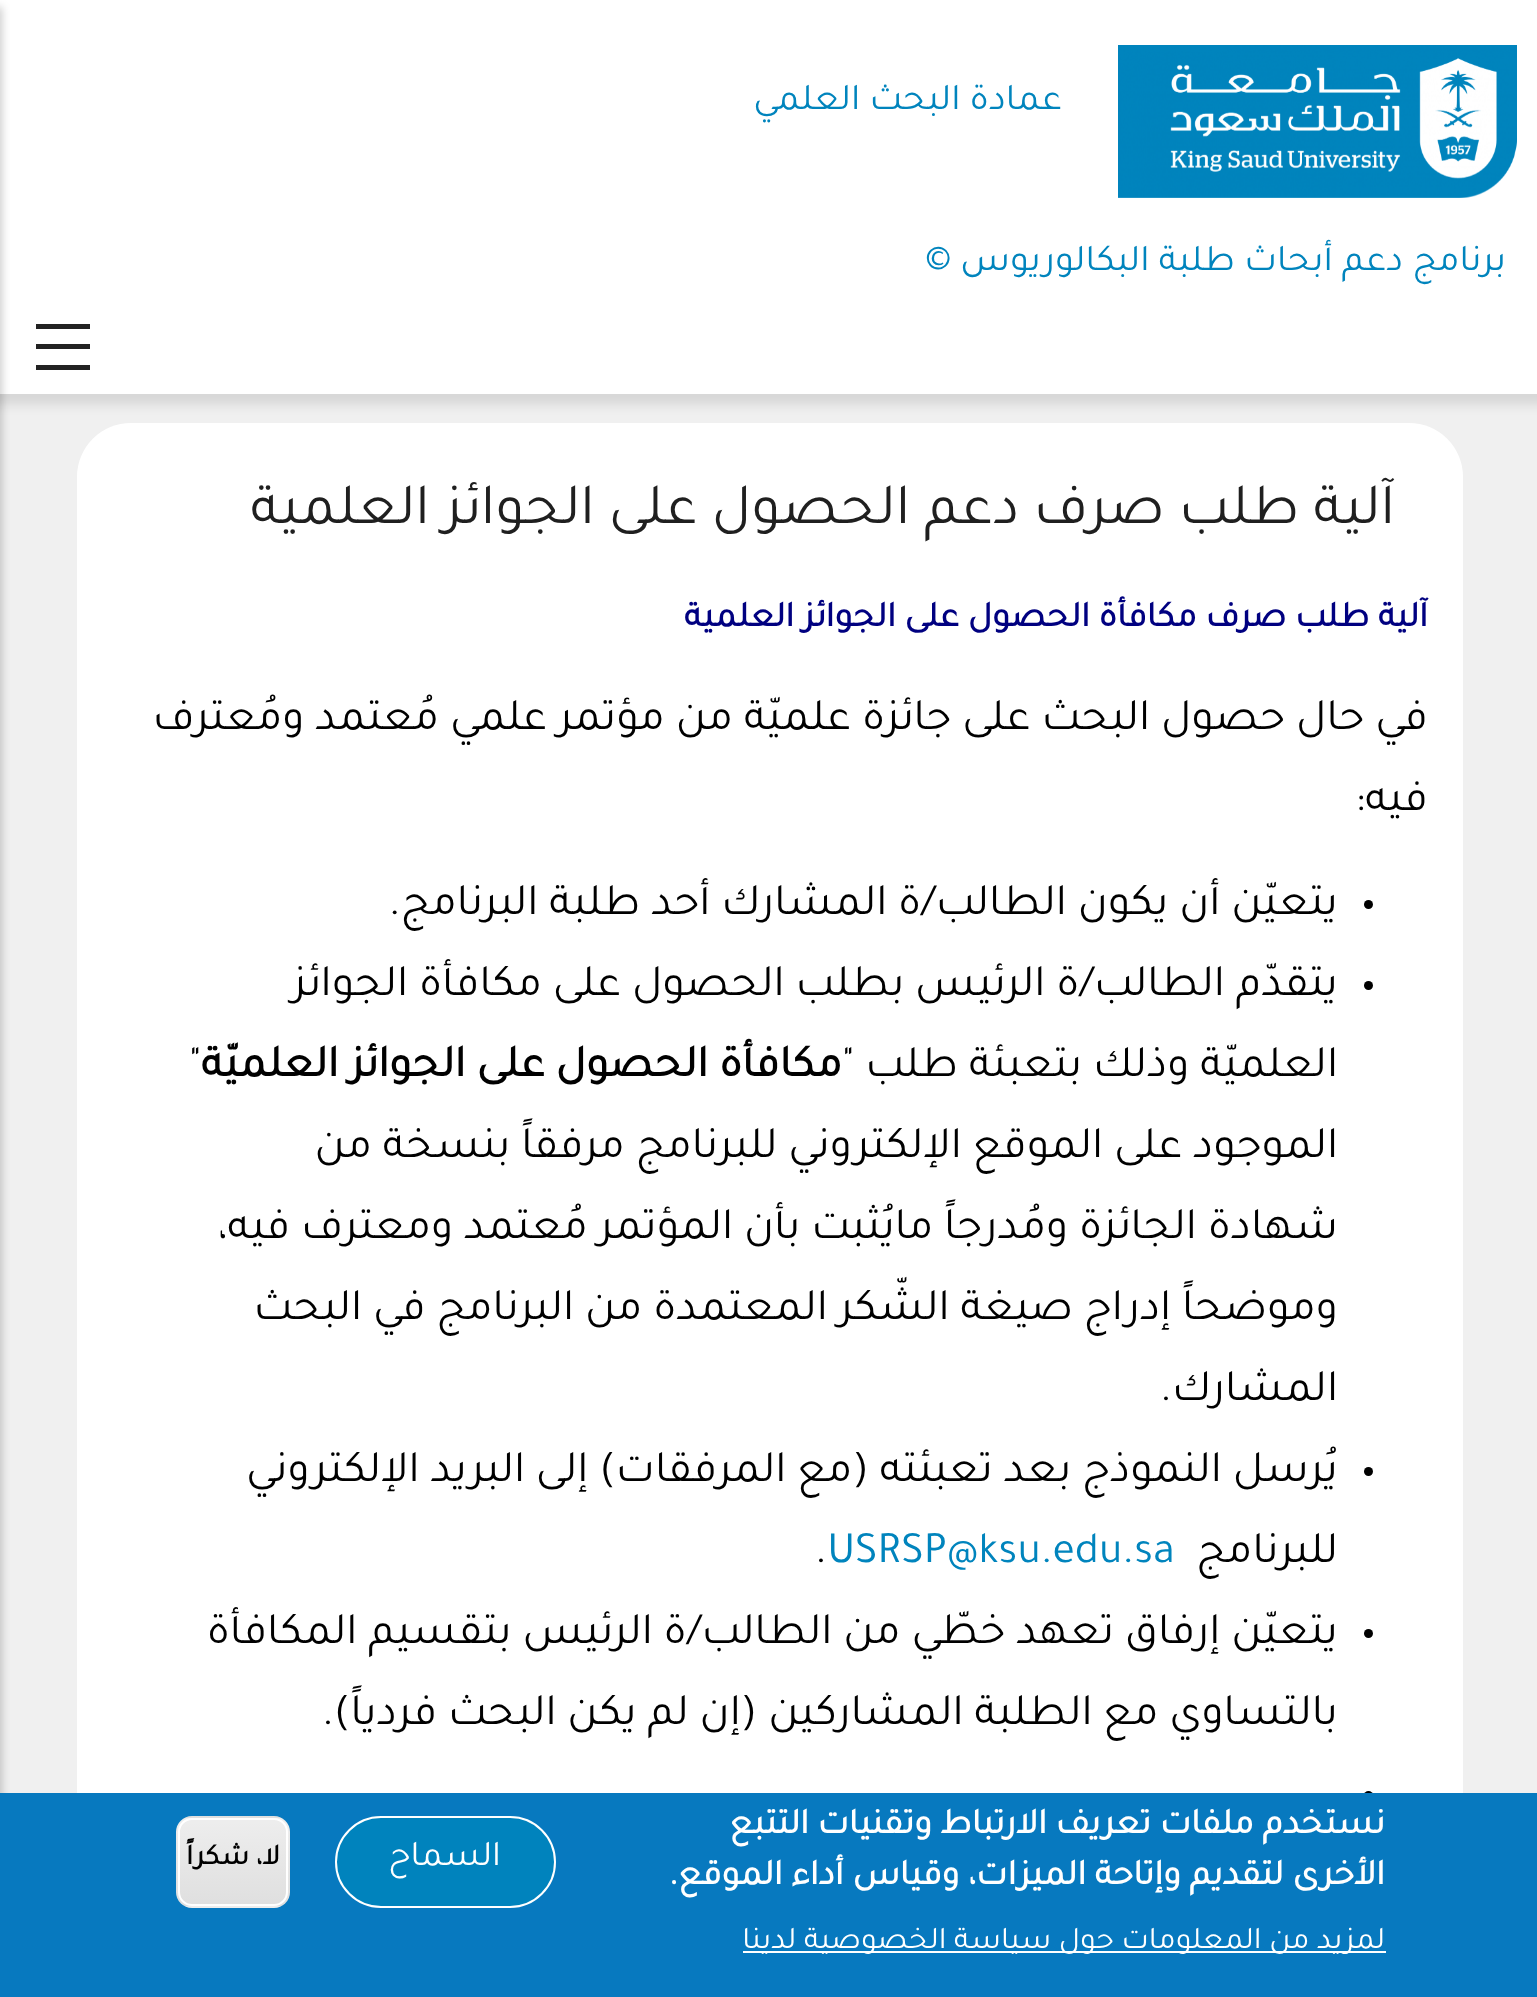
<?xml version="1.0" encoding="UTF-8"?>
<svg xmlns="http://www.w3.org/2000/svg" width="1537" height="1997">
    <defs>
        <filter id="blur1" x="-50%" y="-200%" width="200%" height="500%"><feGaussianBlur stdDeviation="5.5"/></filter>
        <filter id="blur2" x="-50%" y="-200%" width="200%" height="500%"><feGaussianBlur stdDeviation="4.5"/></filter>
        <clipPath id="clip1"><rect x="176" y="1816" width="114" height="92" rx="16"/></clipPath>
        <linearGradient id="g1" gradientUnits="userSpaceOnUse" x1="233" y1="1730" x2="233" y2="1818"><stop offset="0.05" stop-color="#EDEDED"/><stop offset="1" stop-color="#DFDFDF"/></linearGradient>
        <linearGradient id="g2" gradientUnits="userSpaceOnUse" x1="233" y1="1818" x2="233" y2="1906"><stop offset="0.05" stop-color="#EDEDED"/><stop offset="1" stop-color="#DFDFDF"/></linearGradient>
        <linearGradient id="g3" gradientUnits="userSpaceOnUse" x1="233" y1="1906" x2="233" y2="1994"><stop offset="0.05" stop-color="#EDEDED"/><stop offset="1" stop-color="#DFDFDF"/></linearGradient>
    </defs>
    <rect width="100%" height="100%" fill="#F0F0F0"/>
    <rect x="-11" y="-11" width="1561" height="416" fill="#000000" fill-opacity="0.1" filter="url(#blur1)"/>
    <rect x="0" y="0" width="1537" height="394" fill="#FFFFFF"/>
    <image x="1118" y="45" width="399" height="153" href="img_01.png"/>
    <text x="1062" y="109" font-family="Tajawal" font-size="37.75" direction="rtl" fill="#0084BD">عمادة البحث العلمي</text>
    <text x="1506" y="270" font-family="Tajawal" font-size="37.75" direction="rtl" fill="#0084BD">برنامج دعم أبحاث طلبة البكالوريوس ©</text>
    <rect x="36" y="324" width="54" height="5" fill="#222222"/>
    <rect x="36" y="344" width="54" height="5" fill="#222222"/>
    <rect x="36" y="365" width="54" height="5" fill="#222222"/>
    <rect x="-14" y="7" width="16" height="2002" fill="#000000" fill-opacity="0.2" filter="url(#blur2)"/>
    <rect x="77" y="423" width="1386" height="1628" rx="54" fill="#FFFFFF"/>
    <text x="1395" y="523" font-family="Tajawal" font-size="58.5" direction="rtl" fill="#1F1F1F">آلية طلب صرف دعم الحصول على الجوائز العلمية</text>
    <text x="1428" y="626" font-family="Tajawal" font-size="36" font-weight="700" direction="rtl" fill="#000080">آلية طلب صرف مكافأة الحصول على الجوائز العلمية</text>
    <text font-family="Tajawal" font-size="45" direction="rtl" fill="#000000">
        <tspan x="1428" y="729">في حال حصول البحث على جائزة علميّة من مؤتمر علمي مُعتمد ومُعترف</tspan>
        <tspan x="1428" y="810">فيه:</tspan>
    </text>
    <circle cx="1368.5" cy="904.5" r="4.5" fill="#000000"/>
    <text x="1338" y="914" font-family="Tajawal" font-size="45" direction="rtl" fill="#000000">يتعيّن أن يكون الطالب/ة المشارك أحد طلبة البرنامج.</text>
    <circle cx="1368.5" cy="985.5" r="4.5" fill="#000000"/>
    <text font-family="Tajawal" font-size="45" direction="rtl" fill="#000000">
        <tspan x="1338" y="995">يتقدّم الطالب/ة الرئيس بطلب الحصول على مكافأة الجوائز</tspan>
        <tspan x="1338" y="1076">العلميّة وذلك بتعبئة طلب "</tspan>
    </text>
    <text x="842" y="1076" font-family="Tajawal" font-size="45" font-weight="700" direction="rtl" fill="#000000">مكافأة الحصول على الجوائز العلميّة</text>
    <text x="189" y="1076" font-family="Tajawal" font-size="45" fill="#000000">"</text>
    <text font-family="Tajawal" font-size="45" direction="rtl" fill="#000000">
        <tspan x="1338" y="1157">الموجود على الموقع الإلكتروني للبرنامج مرفقاً بنسخة من</tspan>
        <tspan x="1338" y="1238">شهادة الجائزة ومُدرجاً مايُثبت بأن المؤتمر مُعتمد ومعترف فيه،</tspan>
        <tspan x="1338" y="1319">وموضحاً إدراج صيغة الشّكر المعتمدة من البرنامج في البحث</tspan>
        <tspan x="1338" y="1400">المشارك.</tspan>
    </text>
    <circle cx="1368.5" cy="1471.5" r="4.5" fill="#000000"/>
    <text font-family="Tajawal" font-size="45" direction="rtl" fill="#000000">
        <tspan x="1338" y="1481">يُرسل النموذج بعد تعبئته (مع المرفقات) إلى البريد الإلكتروني</tspan>
        <tspan x="1338" y="1562">للبرنامج</tspan>
    </text>
    <text x="827" y="1562" font-family="Tajawal" font-size="45" fill="#0084BD">USRSP@ksu.edu.sa</text>
    <text x="815" y="1562" font-family="Tajawal" font-size="45" fill="#000000">.</text>
    <circle cx="1368.5" cy="1633.5" r="4.5" fill="#000000"/>
    <text font-family="Tajawal" font-size="45" direction="rtl" fill="#000000">
        <tspan x="1338" y="1643">يتعيّن إرفاق تعهد خطّي من الطالب/ة الرئيس بتقسيم المكافأة</tspan>
        <tspan x="1338" y="1724">بالتساوي مع الطلبة المشاركين (إن لم يكن البحث فردياً).</tspan>
    </text>
    <circle cx="1368.5" cy="1795.5" r="4.5" fill="#000000"/>
    <rect x="0" y="1793" width="1537" height="204" fill="#0779BF"/>
    <text font-family="Tajawal" font-size="36" font-weight="700" direction="rtl" fill="#FFFFFF">
        <tspan x="1385" y="1833">نستخدم ملفات تعريف الارتباط وتقنيات التتبع</tspan>
        <tspan x="1385" y="1884">الأخرى لتقديم وإتاحة الميزات، وقياس أداء الموقع.</tspan>
    </text>
    <rect x="743" y="1951" width="643" height="2" fill="#FFFFFF"/>
    <text x="1385" y="1948" font-family="Tajawal" font-size="31.5" direction="rtl" fill="#FFFFFF">لمزيد من المعلومات حول سياسة الخصوصية لدينا</text>
    <rect x="336" y="1817" width="219" height="90" rx="45" fill="#0083BD" stroke="#FFFFFF" stroke-width="2"/>
    <text x="501" y="1865" font-family="Tajawal" font-size="36" direction="rtl" fill="#FFFFFF">السماح</text>
    <g clip-path="url(#clip1)">
        <rect x="176" y="1816" width="114" height="2" fill="url(#g1)"/>
        <rect x="176" y="1818" width="114" height="88" fill="url(#g2)"/>
        <rect x="176" y="1906" width="114" height="2" fill="url(#g3)"/>
    </g>
    <rect x="179" y="1819" width="108" height="86" rx="13" fill="none" stroke="#FFFFFF" stroke-width="2"/>
    <text x="280" y="1864" font-family="Tajawal" font-size="29" font-weight="700" direction="rtl" fill="#000000">لا، شكراً</text>
</svg>
